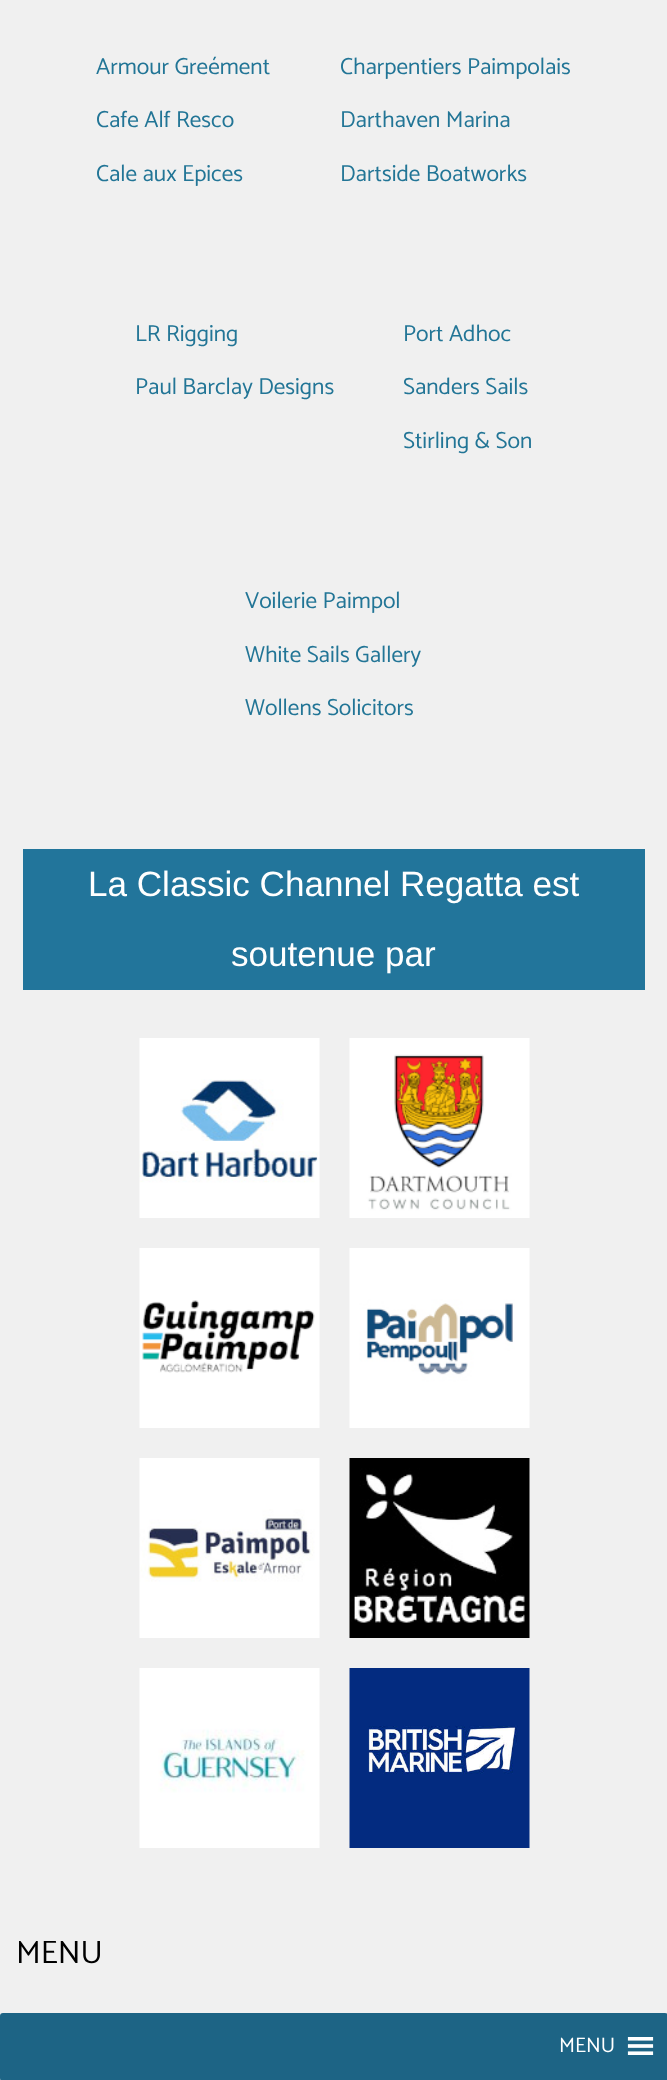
<?xml version="1.0" encoding="UTF-8"?>
<svg xmlns="http://www.w3.org/2000/svg" width="667" height="2080">
    <rect width="100%" height="100%" fill="#F0F0F0"/>
    <text x="96" y="74" font-family="Catamaran" font-size="23.25" font-weight="100" fill="#227596">Armour Greément</text>
    <text x="96" y="127" font-family="Catamaran" font-size="23.25" font-weight="100" fill="#227596">Cafe Alf Resco</text>
    <text x="96" y="181" font-family="Catamaran" font-size="23.25" font-weight="100" fill="#227596">Cale aux Epices</text>
    <text x="340" y="74" font-family="Catamaran" font-size="23.25" font-weight="100" fill="#227596">Charpentiers Paimpolais</text>
    <text x="340" y="127" font-family="Catamaran" font-size="23.25" font-weight="100" fill="#227596">Darthaven Marina</text>
    <text x="340" y="181" font-family="Catamaran" font-size="23.25" font-weight="100" fill="#227596">Dartside Boatworks</text>
    <text x="135" y="341" font-family="Catamaran" font-size="23.25" font-weight="100" fill="#227596">LR Rigging</text>
    <text x="135" y="394" font-family="Catamaran" font-size="23.25" font-weight="100" fill="#227596">Paul Barclay Designs</text>
    <text x="403" y="341" font-family="Catamaran" font-size="23.25" font-weight="100" fill="#227596">Port Adhoc</text>
    <text x="403" y="394" font-family="Catamaran" font-size="23.25" font-weight="100" fill="#227596">Sanders Sails</text>
    <text x="403" y="448" font-family="Catamaran" font-size="23.25" font-weight="100" fill="#227596">Stirling &amp; Son</text>
    <text x="245" y="608" font-family="Catamaran" font-size="23.25" font-weight="100" fill="#227596">Voilerie Paimpol</text>
    <text x="245" y="662" font-family="Catamaran" font-size="23.25" font-weight="100" fill="#227596">White Sails Gallery</text>
    <text x="245" y="715" font-family="Catamaran" font-size="23.25" font-weight="100" fill="#227596">Wollens Solicitors</text>
    <rect x="23" y="849" width="622" height="141" fill="#22759B"/>
    <text x="88" y="896" font-family="Liberation Sans" font-size="35.1" fill="#FFFFFF">La Classic Channel Regatta est</text>
    <text x="231" y="966" font-family="Liberation Sans" font-size="35.1" fill="#FFFFFF">soutenue par</text>
    <image x="139" y="1038" width="181" height="180" href="img_01.png"/>
    <image x="349" y="1038" width="181" height="180" href="img_02.png"/>
    <image x="139" y="1248" width="181" height="180" href="img_03.png"/>
    <image x="349" y="1248" width="181" height="180" href="img_04.png"/>
    <image x="139" y="1458" width="181" height="180" href="img_05.png"/>
    <image x="349" y="1458" width="181" height="180" href="img_06.png"/>
    <image x="139" y="1668" width="181" height="180" href="img_07.png"/>
    <image x="349" y="1668" width="181" height="180" href="img_08.png"/>
    <text x="16" y="1963" font-family="Catamaran" font-size="32.5" font-weight="100" fill="#000000">MENU</text>
    <rect x="0" y="2013" width="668" height="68" rx="3" fill="#1D6485"/>
    <text x="559" y="2052" font-family="Catamaran" font-size="21" font-weight="100" fill="#FFFFFF">MENU</text>
    <image x="627" y="2037" width="27" height="18" href="img_09.png"/>
</svg>
